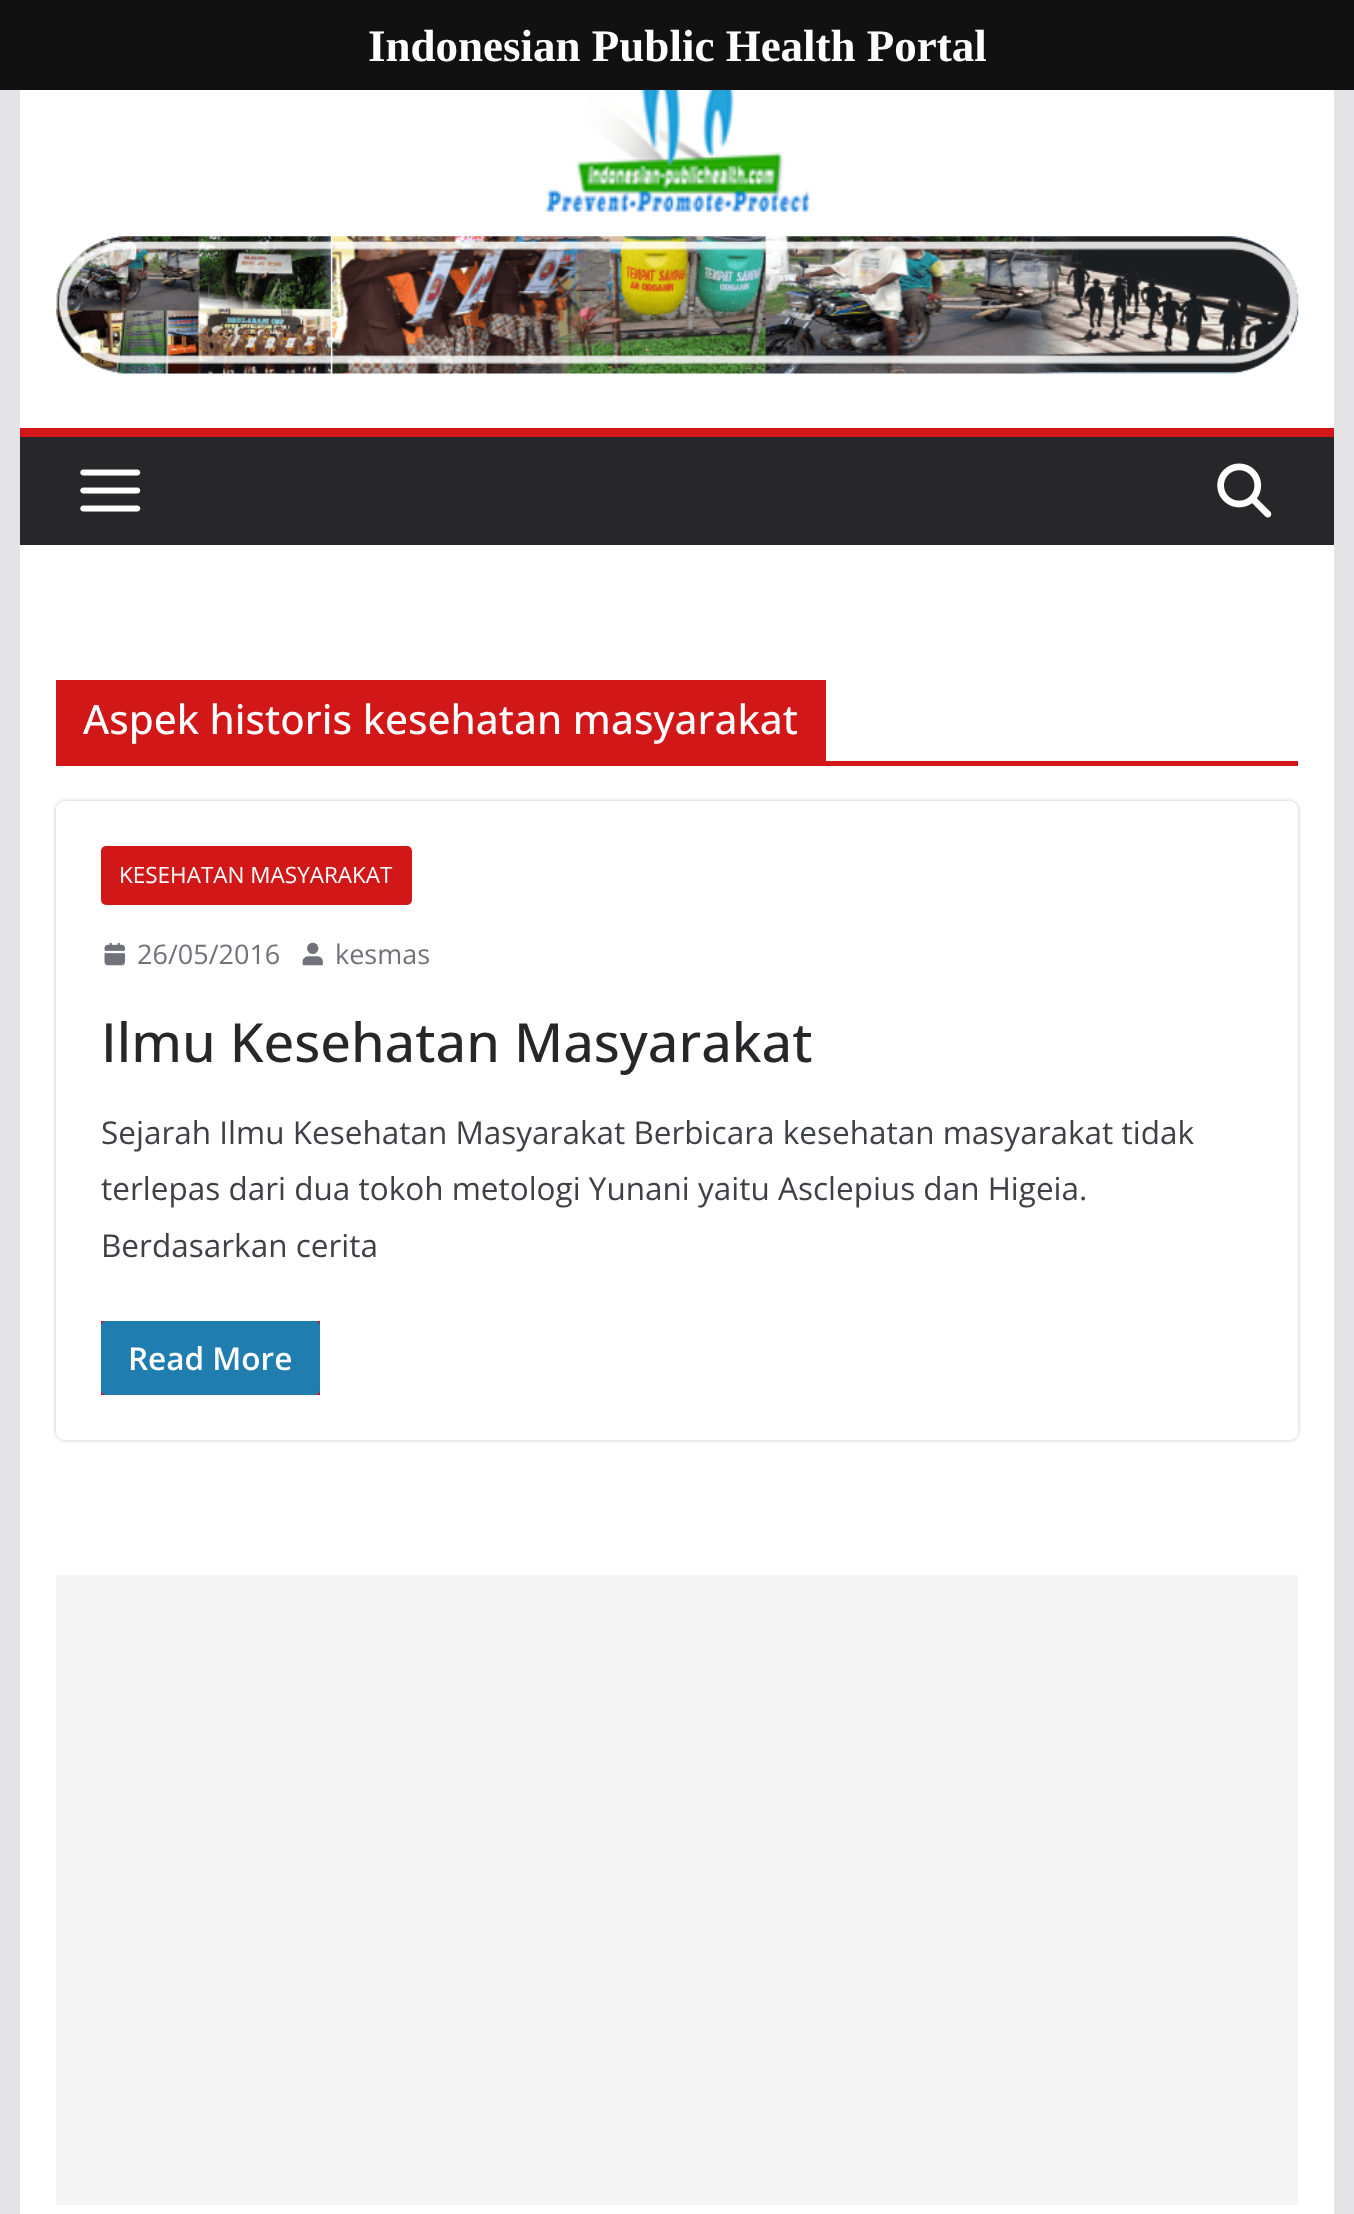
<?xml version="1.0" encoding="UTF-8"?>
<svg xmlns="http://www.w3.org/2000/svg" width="1354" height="2214">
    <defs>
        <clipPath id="clip1"><path d="M 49 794 H 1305 V 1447 H 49 Z M 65 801 H 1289 C 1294 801 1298 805 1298 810 V 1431 C 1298 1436 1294 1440 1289 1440 H 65 C 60 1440 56 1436 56 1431 V 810 C 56 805 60 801 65 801 Z" clip-rule="evenodd"/></clipPath>
        <filter id="blur1" x="-50%" y="-200%" width="200%" height="500%"><feGaussianBlur stdDeviation="2"/></filter>
    </defs>
    <rect width="100%" height="100%" fill="#E4E4E7"/>
    <rect x="0" y="0" width="1354" height="90" fill="#111111"/>
    <text x="368" y="61" font-family="Liberation Serif" font-size="45" font-weight="700" fill="#FFFFFF">Indonesian Public Health Portal</text>
    <rect x="20" y="90" width="1314" height="338" fill="#FFFFFF"/>
    <image x="544" y="90" width="266" height="123" href="img_01.png"/>
    <image x="56" y="236" width="1243" height="138" href="img_02.png"/>
    <rect x="20" y="437" width="1314" height="108" fill="#27272A"/>
    <rect x="20" y="428" width="1314" height="9" fill="#D11717"/>
    <image x="80" y="469" width="61" height="43" href="img_03.png"/>
    <image x="1217" y="463" width="55" height="55" href="img_04.png"/>
    <rect x="20" y="545" width="1314" height="1669" fill="#FFFFFF"/>
    <rect x="56" y="761" width="1242" height="5" fill="#D11717"/>
    <rect x="56" y="680" width="770" height="81" fill="#D11717"/>
    <text x="83" y="734" font-family="Open Sans" font-size="40.5" font-weight="500" fill="#FFFFFF">Aspek historis kesehatan masyarakat</text>
    <g clip-path="url(#clip1)">
        <rect x="56" y="801" width="1242" height="639" rx="9" fill="#000000" fill-opacity="0.24" filter="url(#blur1)"/>
    </g>
    <rect x="101" y="846" width="311" height="59" rx="5" fill="#D11717"/>
    <text x="119" y="883" font-family="Open Sans" font-size="22.5" fill="#FFFFFF">KESEHATAN MASYARAKAT</text>
    <image x="104" y="942" width="21" height="24" href="img_05.png"/>
    <text x="137" y="964" font-family="Open Sans" font-size="27" fill="#71717A">26/05/2016</text>
    <image x="302" y="942" width="21" height="24" href="img_06.png"/>
    <text x="335" y="964" font-family="Open Sans" font-size="27" fill="#71717A">kesmas</text>
    <text x="101" y="1062" font-family="Open Sans" font-size="54" font-weight="500" fill="#27272A">Ilmu Kesehatan Masyarakat</text>
    <text font-family="Open Sans" font-size="31.5" fill="#3F3F46">
        <tspan x="101" y="1144">Sejarah Ilmu Kesehatan Masyarakat Berbicara kesehatan masyarakat tidak</tspan>
        <tspan x="101" y="1200">terlepas dari dua tokoh metologi Yunani yaitu Asclepius dan Higeia.</tspan>
        <tspan x="101" y="1257">Berdasarkan cerita</tspan>
    </text>
    <rect x="101" y="1321" width="219" height="74" fill="#D11717"/>
    <rect x="101" y="1321" width="219" height="74" rx="5" fill="#207DAF"/>
    <text x="128" y="1370" font-family="Open Sans" font-size="31.5" font-weight="600" fill="#FFFFFF">Read More</text>
    <rect x="56" y="1575" width="1242" height="630" fill="#F4F4F5"/>
</svg>
